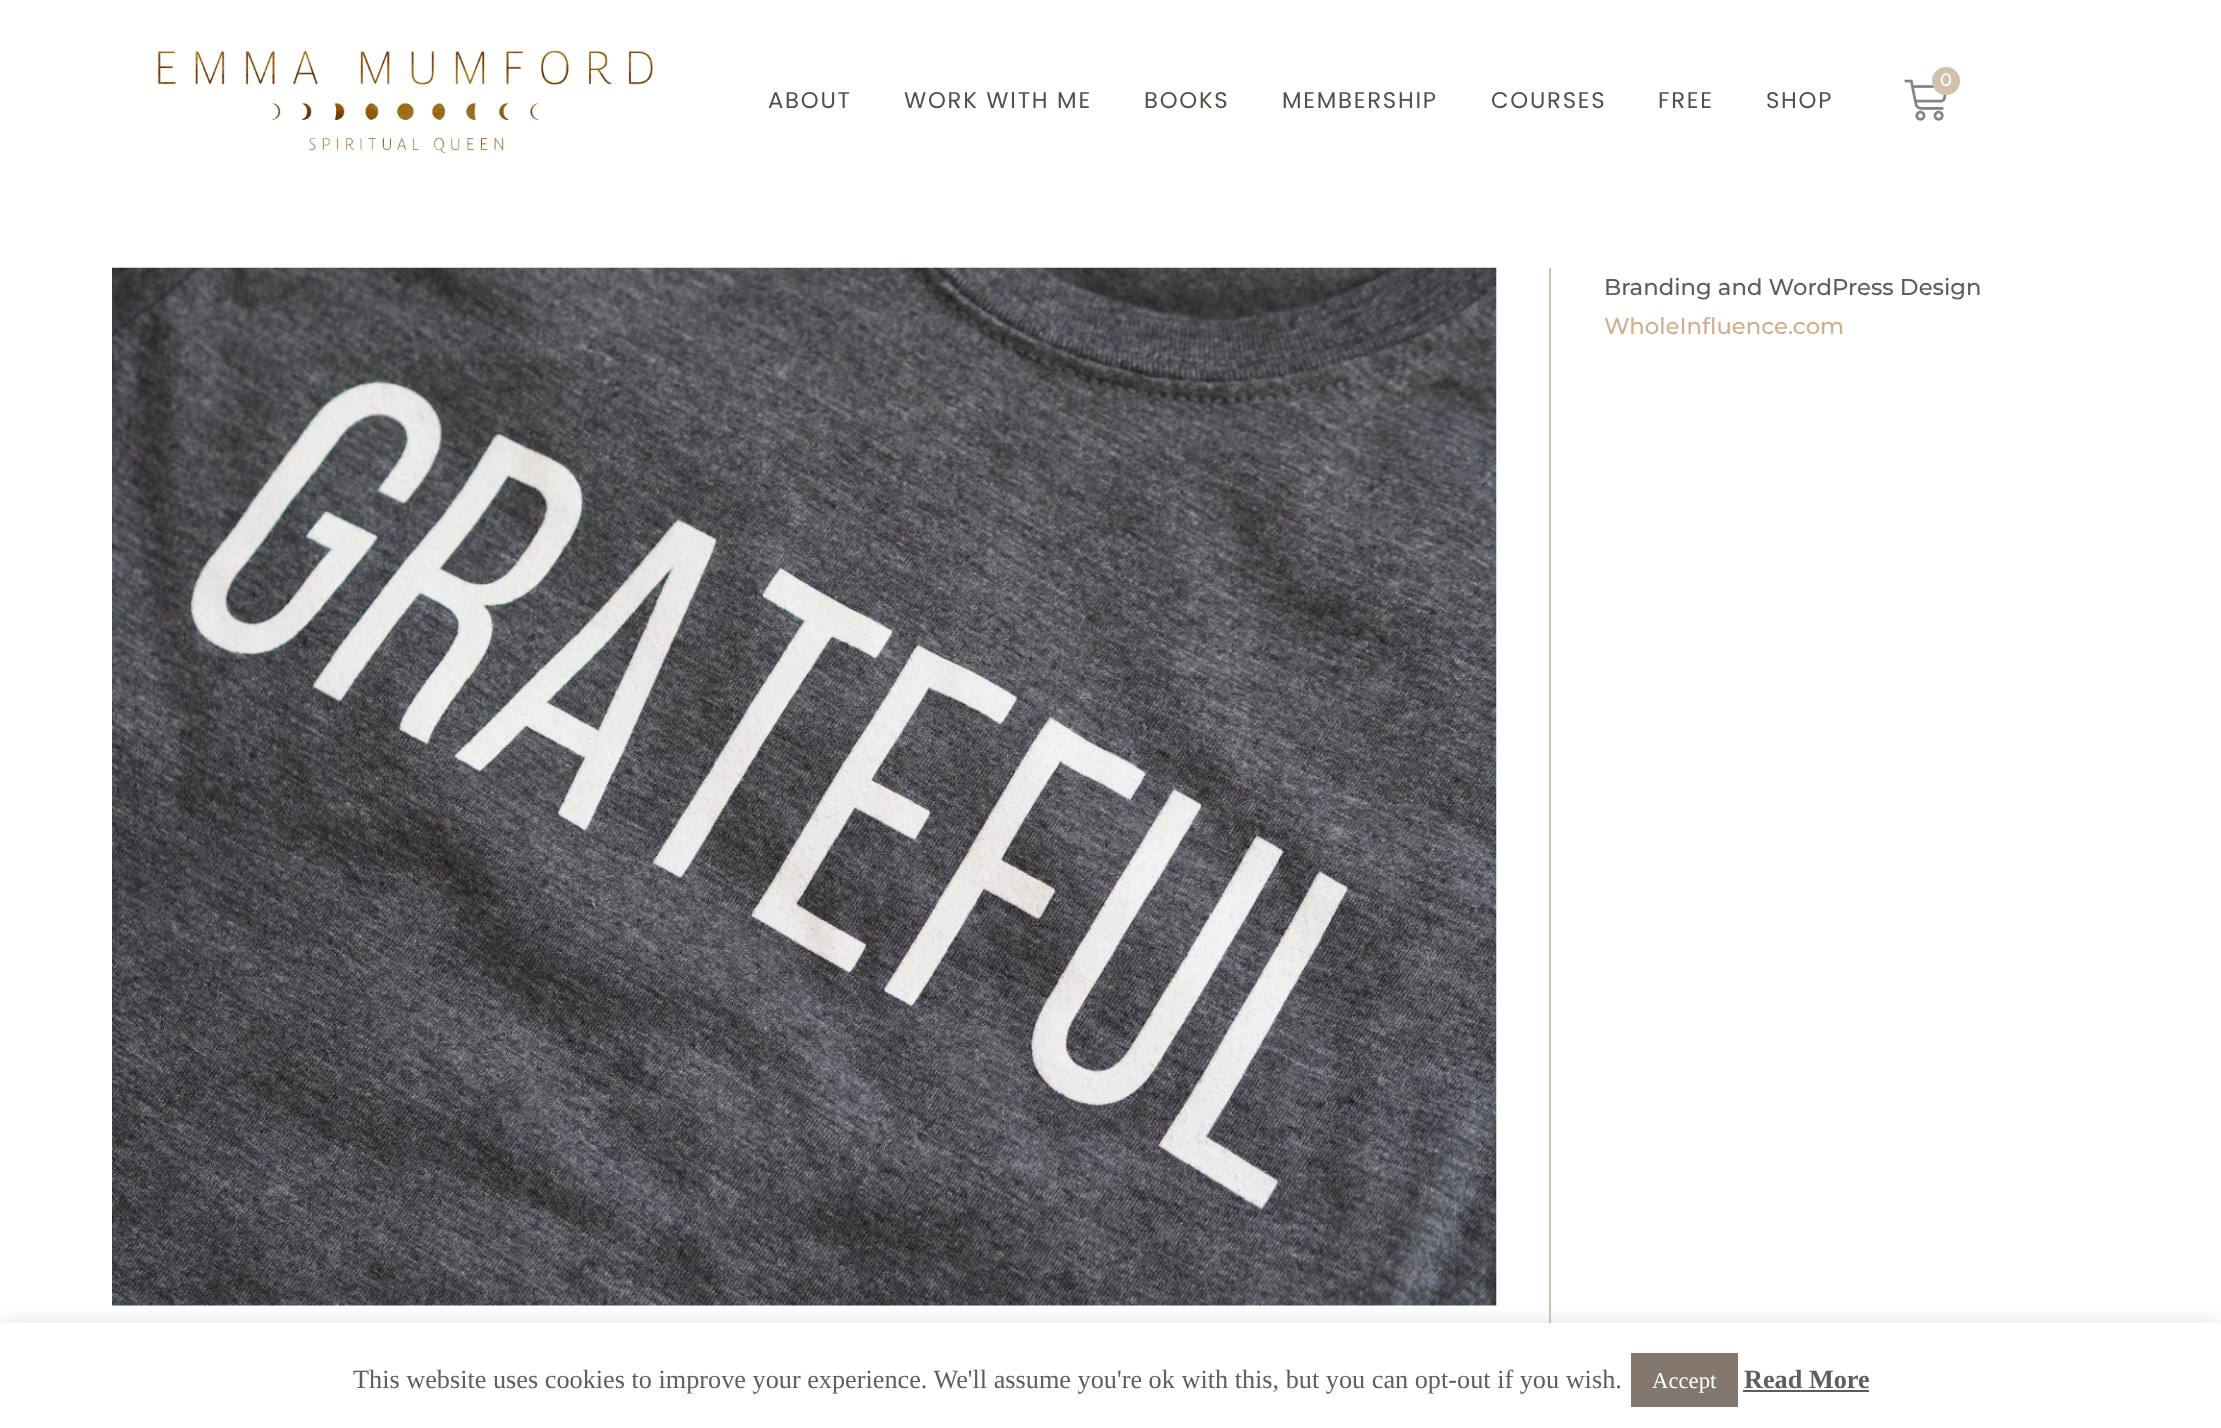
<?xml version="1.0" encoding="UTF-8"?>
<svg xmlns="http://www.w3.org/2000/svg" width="2221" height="1428">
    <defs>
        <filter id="blur1" x="-50%" y="-200%" width="200%" height="500%"><feGaussianBlur stdDeviation="9"/></filter>
    </defs>
    <rect width="100%" height="100%" fill="#FFFFFF"/>
    <image x="158" y="50" width="495" height="104" href="img_01.png"/>
    <image x="1904" y="79" width="43" height="42" href="img_02.png"/>
    <circle cx="1946" cy="81" r="14" fill="#D1C1AA"/>
    <text x="1940" y="86" font-family="Montserrat" font-size="18" font-weight="500" fill="#FFFFFF">0</text>
    <text x="768" y="108" font-family="Poppins" font-size="22.75" letter-spacing="1.75" fill="#554E49">ABOUT</text>
    <text x="904" y="108" font-family="Poppins" font-size="22.75" letter-spacing="1.75" fill="#554E49">WORK WITH ME</text>
    <text x="1144" y="108" font-family="Poppins" font-size="22.75" letter-spacing="1.75" fill="#554E49">BOOKS</text>
    <text x="1282" y="108" font-family="Poppins" font-size="22.75" letter-spacing="1.75" fill="#554E49">MEMBERSHIP</text>
    <text x="1491" y="108" font-family="Poppins" font-size="22.75" letter-spacing="1.75" fill="#554E49">COURSES</text>
    <text x="1658" y="108" font-family="Poppins" font-size="22.75" letter-spacing="1.75" fill="#554E49">FREE</text>
    <text x="1766" y="108" font-family="Poppins" font-size="22.75" letter-spacing="1.75" fill="#554E49">SHOP</text>
    <rect x="1549" y="268" width="2" height="1055" fill="#D2C0AB"/>
    <image x="112" y="267" width="1385" height="1039" href="img_03.png"/>
    <text x="1604" y="295" font-family="Montserrat" font-size="22.75" font-weight="500" fill="#5E5E5E">Branding and WordPress Design</text>
    <text x="1604" y="334" font-family="Montserrat" font-size="22.75" font-weight="500" fill="#D1AE8C">WholeInfluence.com</text>
    <rect x="0" y="1321" width="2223" height="105" fill="#ACABAB" fill-opacity="0.3" filter="url(#blur1)"/>
    <rect x="0" y="1323" width="2221" height="105" fill="#FFFFFF"/>
    <text x="353" y="1388" font-family="Liberation Serif" font-size="26.25" fill="#5E5E5E">This website uses cookies to improve your experience. We'll assume you're ok with this, but you can opt-out if you wish.</text>
    <rect x="1631" y="1353" width="107" height="54" fill="#83766C"/>
    <text x="1652" y="1388" font-family="Liberation Serif" font-size="22.75" fill="#FFFFFF">Accept</text>
    <text x="1744" y="1388" font-family="Liberation Serif" font-size="26.25" font-weight="700" fill="#5E5E5E">Read More</text>
    <rect x="1743" y="1390" width="126" height="2" fill="#5B5B5B"/>
</svg>
